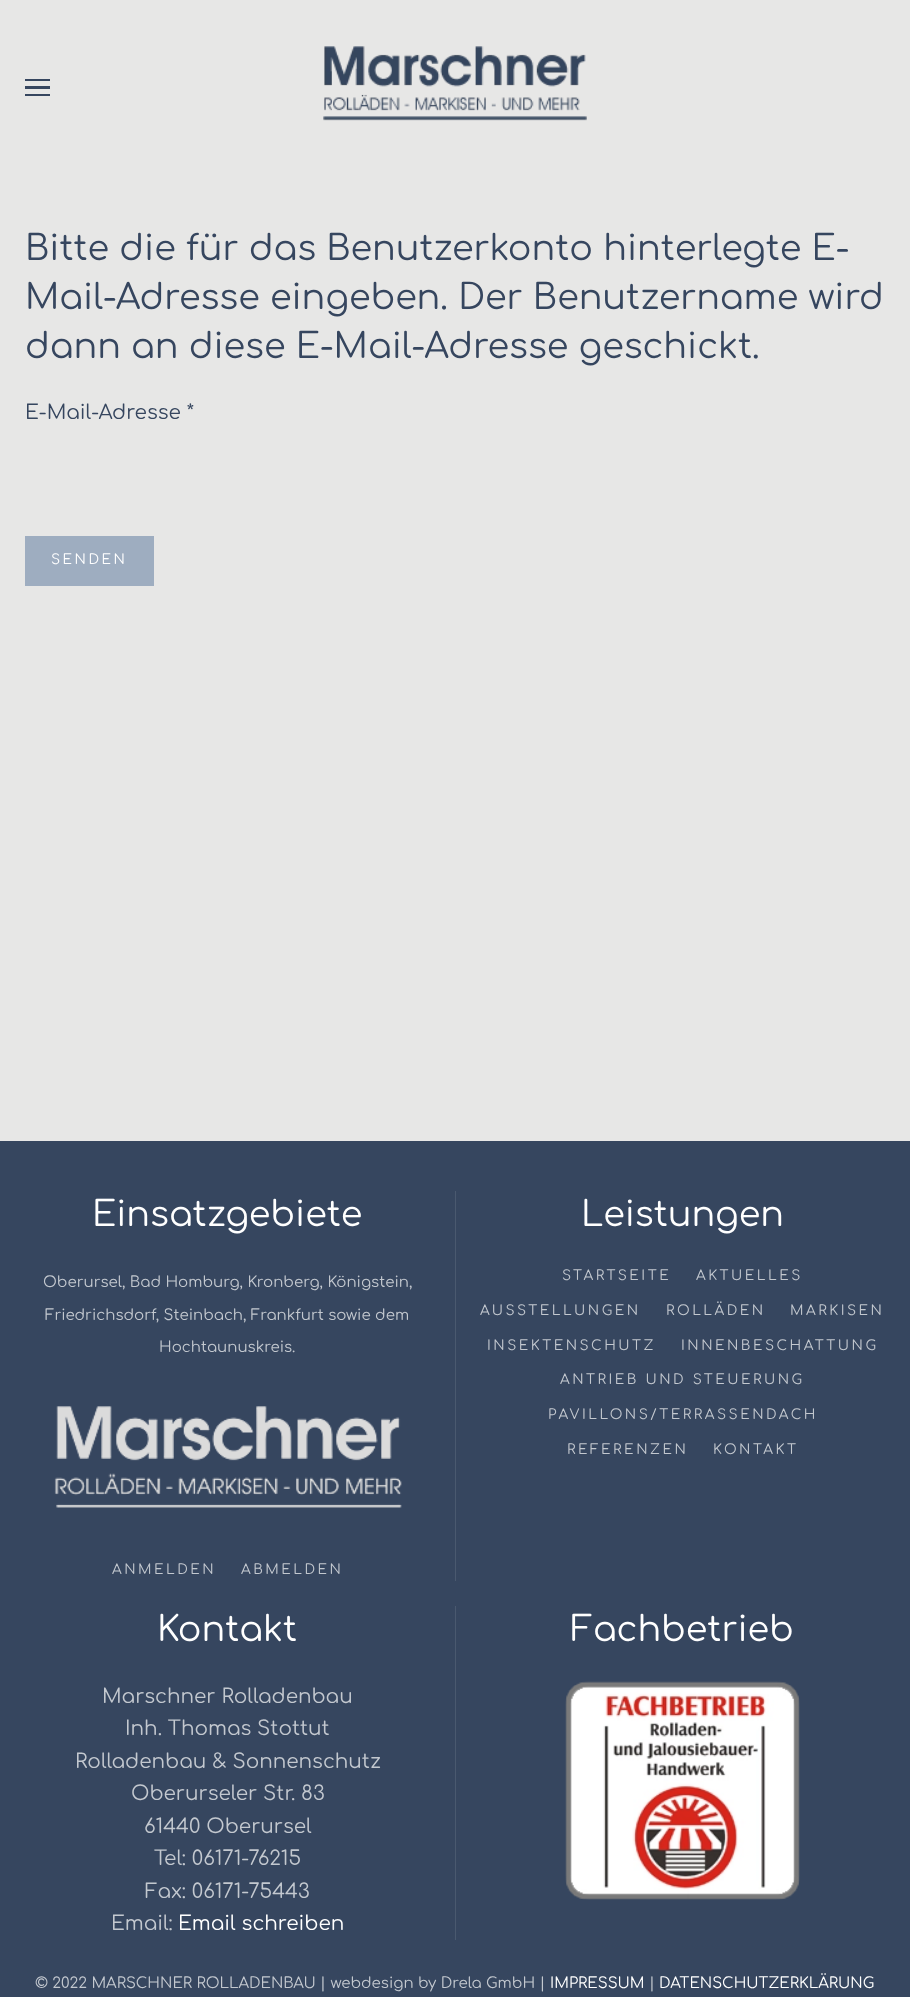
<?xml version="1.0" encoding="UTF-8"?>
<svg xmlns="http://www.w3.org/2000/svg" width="910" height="1997">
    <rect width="100%" height="100%" fill="#E7E7E6"/>
    <rect x="25" y="79" width="25" height="2" fill="#36465F"/>
    <rect x="25" y="86" width="25" height="3" fill="#36465F"/>
    <rect x="25" y="94" width="25" height="2" fill="#36465F"/>
    <image x="323" y="46" width="264" height="75" href="img_01.png"/>
    <text font-family="Comfortaa" font-size="35" fill="#36465F">
        <tspan x="25" y="260">Bitte die für das Benutzerkonto hinterlegte E-</tspan>
        <tspan x="25" y="309">Mail-Adresse eingeben. Der Benutzername wird</tspan>
        <tspan x="25" y="358">dann an diese E-Mail-Adresse geschickt.</tspan>
    </text>
    <text x="25" y="419" font-family="Comfortaa" font-size="20" fill="#36465F">E-Mail-Adresse *</text>
    <rect x="25" y="536" width="129" height="50" fill="#9EADC0"/>
    <text x="51" y="564" font-family="Comfortaa" font-size="13.75" letter-spacing="2.5" fill="#FFFFFF">SENDEN</text>
    <rect x="0" y="1141" width="910" height="856" fill="#36465F"/>
    <text x="92" y="1226" font-family="Comfortaa" font-size="35" fill="#FFFFFF">Einsatzgebiete</text>
    <text x="43" y="1287" font-family="Comfortaa" font-size="15" fill="#C3C8CF">Oberursel, Bad Homburg, Kronberg, Königstein,</text>
    <text x="45" y="1320" font-family="Comfortaa" font-size="15" fill="#C3C8CF">Friedrichsdorf, Steinbach, Frankfurt sowie dem</text>
    <text x="159" y="1352" font-family="Comfortaa" font-size="15" fill="#C3C8CF">Hochtaunuskreis.</text>
    <image x="54" y="1406" width="348" height="102" href="img_02.png"/>
    <text x="112" y="1574" font-family="Comfortaa" font-size="13.75" letter-spacing="2.5" fill="#C3C8CF">ANMELDEN</text>
    <text x="241" y="1574" font-family="Comfortaa" font-size="13.75" letter-spacing="2.5" fill="#C3C8CF">ABMELDEN</text>
    <rect x="455" y="1191" width="1" height="390" fill="#4A596F"/>
    <text x="581" y="1226" font-family="Comfortaa" font-size="35" fill="#FFFFFF">Leistungen</text>
    <text x="562" y="1280" font-family="Comfortaa" font-size="13.75" letter-spacing="2.5" fill="#C3C8CF">STARTSEITE</text>
    <text x="696" y="1280" font-family="Comfortaa" font-size="13.75" letter-spacing="2.5" fill="#C3C8CF">AKTUELLES</text>
    <text x="480" y="1315" font-family="Comfortaa" font-size="13.75" letter-spacing="2.5" fill="#C3C8CF">AUSSTELLUNGEN</text>
    <text x="666" y="1315" font-family="Comfortaa" font-size="13.75" letter-spacing="2.5" fill="#C3C8CF">ROLLÄDEN</text>
    <text x="790" y="1315" font-family="Comfortaa" font-size="13.75" letter-spacing="2.5" fill="#C3C8CF">MARKISEN</text>
    <text x="487" y="1350" font-family="Comfortaa" font-size="13.75" letter-spacing="2.5" fill="#C3C8CF">INSEKTENSCHUTZ</text>
    <text x="681" y="1350" font-family="Comfortaa" font-size="13.75" letter-spacing="2.5" fill="#C3C8CF">INNENBESCHATTUNG</text>
    <text x="560" y="1384" font-family="Comfortaa" font-size="13.75" letter-spacing="2.5" fill="#C3C8CF">ANTRIEB UND STEUERUNG</text>
    <text x="548" y="1419" font-family="Comfortaa" font-size="13.75" letter-spacing="2.5" fill="#C3C8CF">PAVILLONS/TERRASSENDACH</text>
    <text x="567" y="1454" font-family="Comfortaa" font-size="13.75" letter-spacing="2.5" fill="#C3C8CF">REFERENZEN</text>
    <text x="713" y="1454" font-family="Comfortaa" font-size="13.75" letter-spacing="2.5" fill="#C3C8CF">KONTAKT</text>
    <text x="157" y="1641" font-family="Comfortaa" font-size="35" fill="#FFFFFF">Kontakt</text>
    <text x="102" y="1703" font-family="Comfortaa" font-size="20" fill="#C3C8CF">Marschner Rolladenbau</text>
    <text x="125" y="1735" font-family="Comfortaa" font-size="20" fill="#C3C8CF">Inh. Thomas Stottut</text>
    <text x="75" y="1768" font-family="Comfortaa" font-size="20" fill="#C3C8CF">Rolladenbau &amp; Sonnenschutz</text>
    <text x="131" y="1800" font-family="Comfortaa" font-size="20" fill="#C3C8CF">Oberurseler Str. 83</text>
    <text x="144" y="1833" font-family="Comfortaa" font-size="20" fill="#C3C8CF">61440 Oberursel</text>
    <text x="154" y="1865" font-family="Comfortaa" font-size="20" fill="#C3C8CF">Tel: 06171-76215</text>
    <text x="145" y="1898" font-family="Comfortaa" font-size="20" fill="#C3C8CF">Fax: 06171-75443</text>
    <text x="111" y="1930" font-family="Comfortaa" font-size="20" fill="#C3C8CF">Email:</text>
    <text x="178" y="1930" font-family="Comfortaa" font-size="20" fill="#FFFFFF">Email schreiben</text>
    <rect x="455" y="1606" width="1" height="334" fill="#4A596F"/>
    <text x="571" y="1641" font-family="Comfortaa" font-size="35" fill="#FFFFFF">Fachbetrieb</text>
    <image x="565" y="1681" width="235" height="219" href="img_03.png"/>
    <text x="35" y="1988" font-family="Comfortaa" font-size="15" fill="#C3C8CF">© 2022 MARSCHNER ROLLADENBAU | webdesign by Drela GmbH |</text>
    <text x="550" y="1988" font-family="Comfortaa" font-size="15" fill="#FFFFFF">IMPRESSUM</text>
    <text x="649" y="1988" font-family="Comfortaa" font-size="15" fill="#C3C8CF">|</text>
    <text x="659" y="1988" font-family="Comfortaa" font-size="15" fill="#FFFFFF">DATENSCHUTZERKLÄRUNG</text>
</svg>
